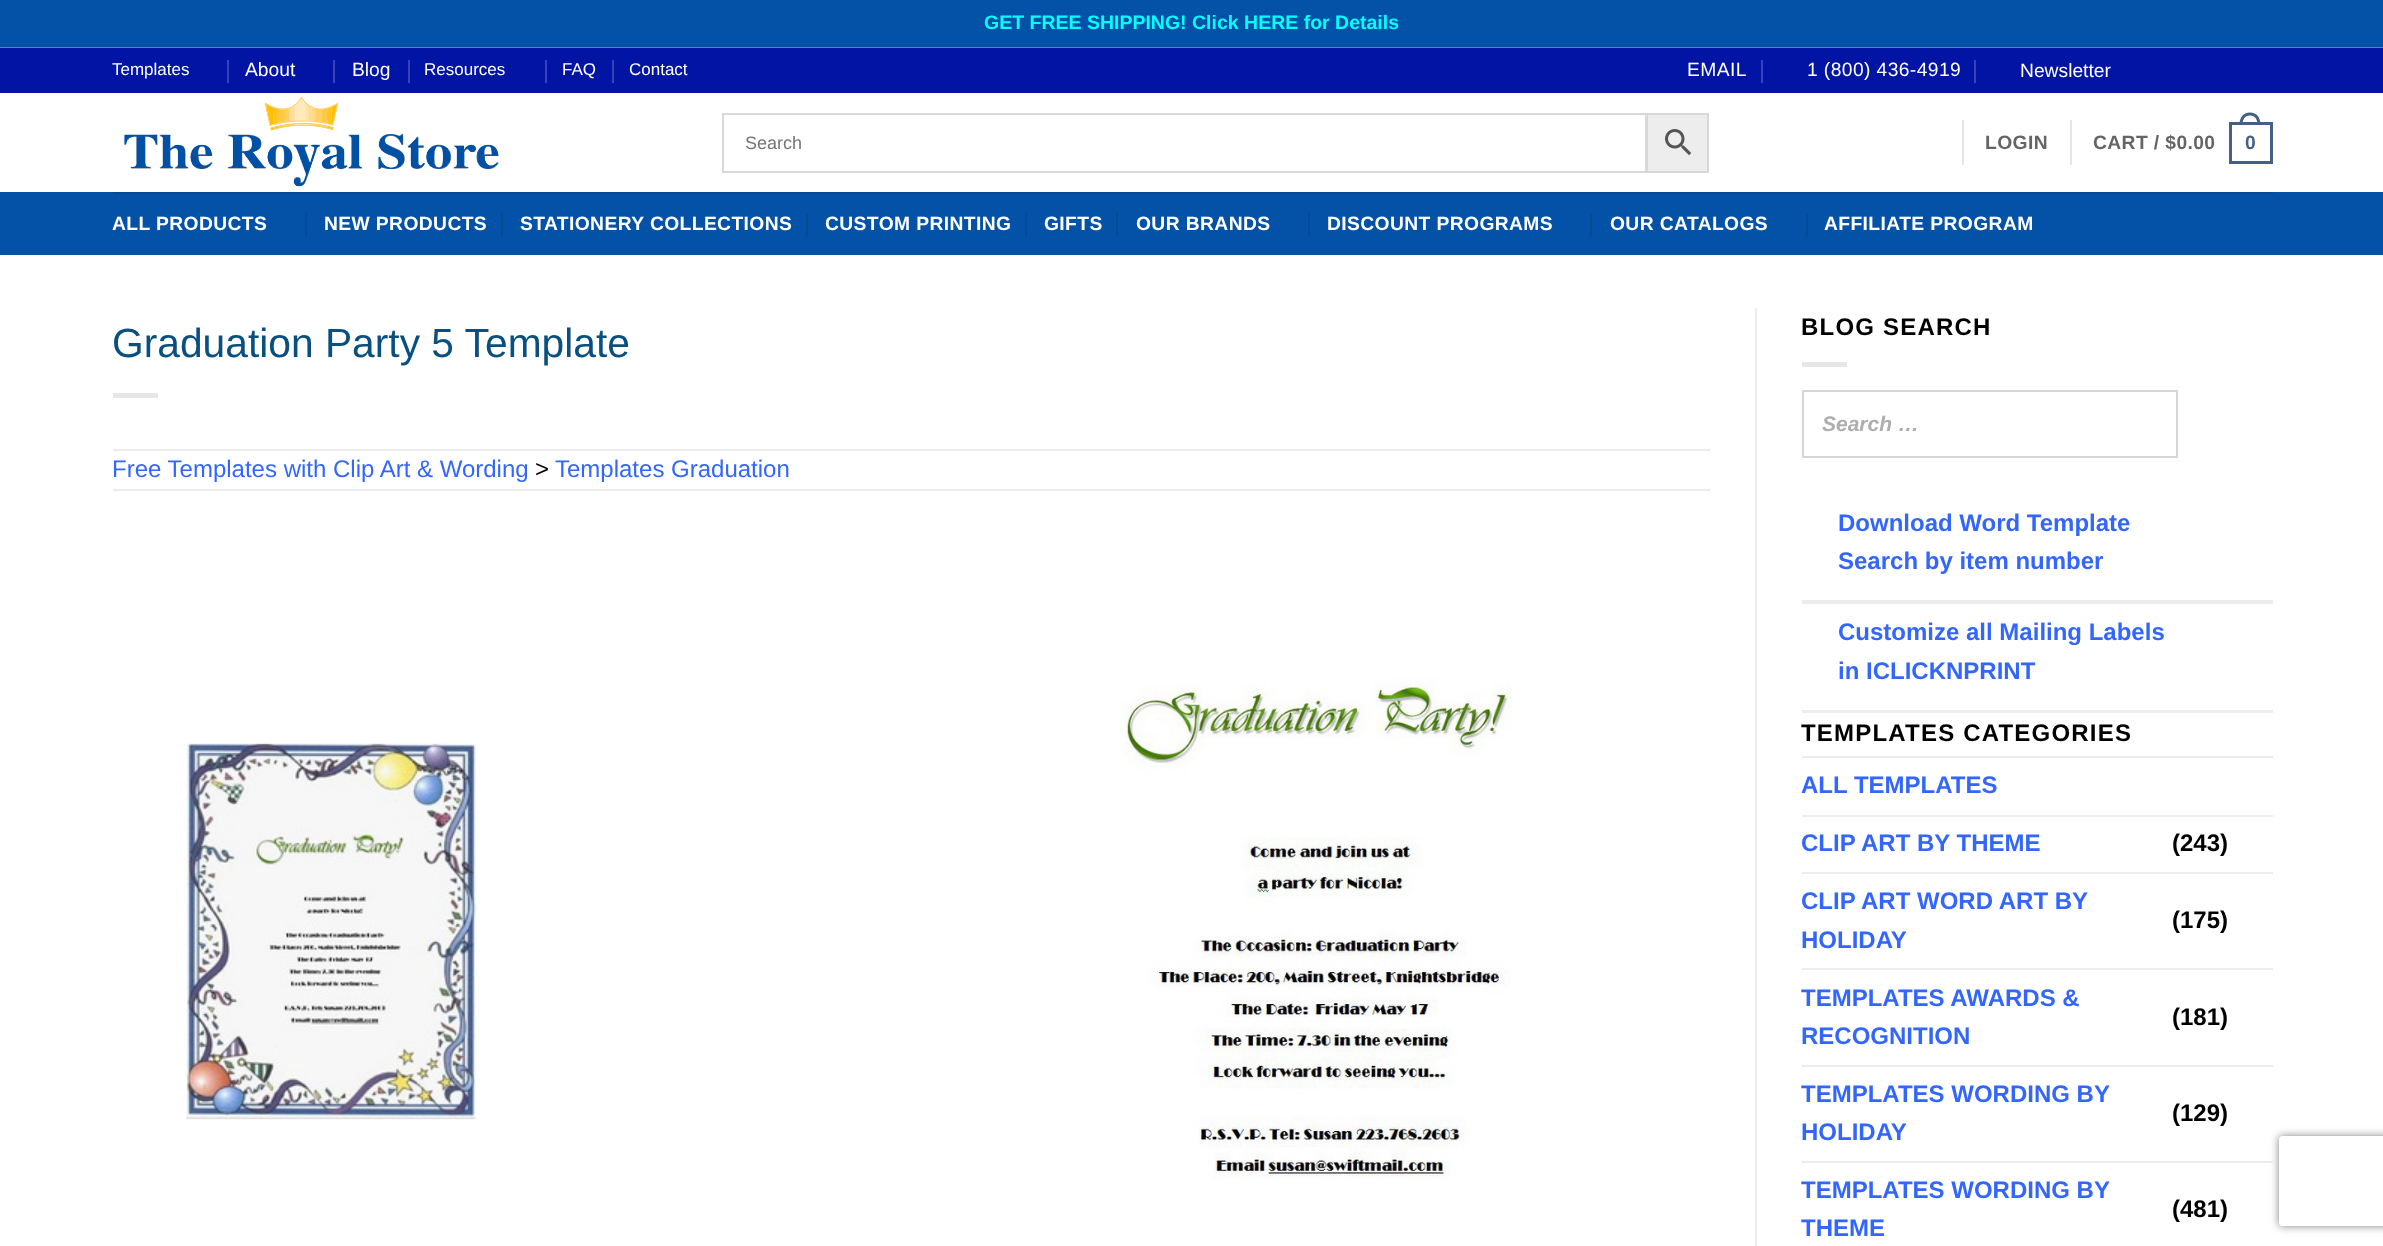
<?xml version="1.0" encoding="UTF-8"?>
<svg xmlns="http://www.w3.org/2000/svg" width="2383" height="1246">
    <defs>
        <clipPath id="clip1"><path d="M 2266 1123 H 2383 V 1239 H 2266 Z M 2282 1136 H 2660 C 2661.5 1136 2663 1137.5 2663 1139 V 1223 C 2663 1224.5 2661.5 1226 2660 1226 H 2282 C 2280.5 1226 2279 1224.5 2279 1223 V 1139 C 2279 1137.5 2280.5 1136 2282 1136 Z" clip-rule="evenodd"/></clipPath>
        <filter id="blur1" x="-50%" y="-200%" width="200%" height="500%"><feGaussianBlur stdDeviation="4"/></filter>
    </defs>
    <rect width="100%" height="100%" fill="#0452A7"/>
    <rect x="0" y="47" width="2383" height="1" fill="#4F86C1"/>
    <text x="984" y="29" font-family="Liberation Sans" font-size="19.5" font-weight="700" fill="#00FFFF">GET FREE SHIPPING! Click HERE for Details</text>
    <rect x="0" y="93" width="2383" height="1153" fill="#FFFFFF"/>
    <rect x="0" y="48" width="2383" height="45" fill="#0114A3"/>
    <text x="112" y="75" font-family="Liberation Sans" font-size="17" fill="#FFFFFF">Templates</text>
    <rect x="227" y="60" width="2" height="23" fill="#3443B5"/>
    <text x="245" y="76" font-family="Liberation Sans" font-size="19.25" fill="#FFFFFF">About</text>
    <rect x="333" y="60" width="2" height="23" fill="#3443B5"/>
    <text x="352" y="76" font-family="Liberation Sans" font-size="19.25" fill="#FFFFFF">Blog</text>
    <rect x="408" y="60" width="2" height="23" fill="#3443B5"/>
    <text x="424" y="75" font-family="Liberation Sans" font-size="17" fill="#FFFFFF">Resources</text>
    <rect x="545" y="60" width="2" height="23" fill="#3443B5"/>
    <text x="562" y="75" font-family="Liberation Sans" font-size="17" fill="#FFFFFF">FAQ</text>
    <rect x="612" y="60" width="2" height="23" fill="#3443B5"/>
    <text x="629" y="75" font-family="Liberation Sans" font-size="17" fill="#FFFFFF">Contact</text>
    <text x="1687" y="76" font-family="Liberation Sans" font-size="19.25" letter-spacing="0.4" fill="#FFFFFF">EMAIL</text>
    <rect x="1761" y="60" width="2" height="23" fill="#3443B5"/>
    <text x="1807" y="76" font-family="Liberation Sans" font-size="19.25" letter-spacing="0.4" fill="#FFFFFF">1 (800) 436-4919</text>
    <rect x="1974" y="60" width="2" height="23" fill="#3443B5"/>
    <text x="2020" y="77" font-family="Liberation Sans" font-size="19.25" fill="#FFFFFF">Newsletter</text>
    <image x="124" y="96" width="375" height="91" href="img_01.png"/>
    <rect x="1647" y="114" width="61" height="58" fill="#EDEDED" stroke="#D8D8D8" stroke-width="2"/>
    <rect x="723" y="114" width="923" height="58" fill="none" stroke="#D8D8D8" stroke-width="2"/>
    <text x="745" y="149" font-family="Liberation Sans" font-size="18" fill="#757575">Search</text>
    <image x="1665" y="129" width="27" height="27" href="img_02.png"/>
    <rect x="1962" y="120" width="2" height="45" fill="#E6E6E6"/>
    <text x="1985" y="149" font-family="Liberation Sans" font-size="19.25" font-weight="700" letter-spacing="0.4" fill="#656565">LOGIN</text>
    <rect x="2070" y="120" width="2" height="45" fill="#E6E6E6"/>
    <text x="2093" y="149" font-family="Liberation Sans" font-size="19.25" font-weight="700" letter-spacing="0.4" fill="#656565">CART / $0.00</text>
    <rect x="2230.5" y="123.5" width="41" height="39" fill="none" stroke="#446084" stroke-width="3"/>
    <path d="M 2250 112.5 C 2257 112.5 2260.5 118 2260.5 124.5 H 2239.5 C 2239.5 118 2243 112.5 2250 112.5 Z M 2250 115.5 C 2255.5 115.5 2257.5 120 2257.5 124.5 H 2242.5 C 2242.5 120 2244.5 115.5 2250 115.5 Z" fill="#446084" fill-rule="evenodd"/>
    <text x="2245" y="149" font-family="Liberation Sans" font-size="19.25" font-weight="700" letter-spacing="0.4" fill="#446084">0</text>
    <rect x="0" y="192" width="2383" height="63" fill="#0452A7"/>
    <rect x="113" y="192" width="2160" height="2" fill="#044A96"/>
    <text x="112" y="230" font-family="Liberation Sans" font-size="19.25" font-weight="700" letter-spacing="0.4" fill="#FFFFFF">ALL PRODUCTS</text>
    <rect x="305" y="213" width="2" height="23" fill="#044A96"/>
    <text x="324" y="230" font-family="Liberation Sans" font-size="19.25" font-weight="700" letter-spacing="0.4" fill="#FFFFFF">NEW PRODUCTS</text>
    <rect x="501" y="213" width="2" height="23" fill="#044A96"/>
    <text x="520" y="230" font-family="Liberation Sans" font-size="19.25" font-weight="700" letter-spacing="0.4" fill="#FFFFFF">STATIONERY COLLECTIONS</text>
    <rect x="806" y="213" width="2" height="23" fill="#044A96"/>
    <text x="825" y="230" font-family="Liberation Sans" font-size="19.25" font-weight="700" letter-spacing="0.4" fill="#FFFFFF">CUSTOM PRINTING</text>
    <rect x="1025" y="213" width="2" height="23" fill="#044A96"/>
    <text x="1044" y="230" font-family="Liberation Sans" font-size="19.25" font-weight="700" letter-spacing="0.4" fill="#FFFFFF">GIFTS</text>
    <rect x="1116" y="213" width="2" height="23" fill="#044A96"/>
    <text x="1136" y="230" font-family="Liberation Sans" font-size="19.25" font-weight="700" letter-spacing="0.4" fill="#FFFFFF">OUR BRANDS</text>
    <rect x="1308" y="213" width="2" height="23" fill="#044A96"/>
    <text x="1327" y="230" font-family="Liberation Sans" font-size="19.25" font-weight="700" letter-spacing="0.4" fill="#FFFFFF">DISCOUNT PROGRAMS</text>
    <rect x="1590" y="213" width="2" height="23" fill="#044A96"/>
    <text x="1610" y="230" font-family="Liberation Sans" font-size="19.25" font-weight="700" letter-spacing="0.4" fill="#FFFFFF">OUR CATALOGS</text>
    <rect x="1806" y="213" width="2" height="23" fill="#044A96"/>
    <text x="1824" y="230" font-family="Liberation Sans" font-size="19.25" font-weight="700" letter-spacing="0.4" fill="#FFFFFF">AFFILIATE PROGRAM</text>
    <text x="112" y="357" font-family="Liberation Sans" font-size="40.75" fill="#095081">Graduation Party 5 Template</text>
    <rect x="113" y="393" width="45" height="5" fill="#E6E6E6"/>
    <rect x="113" y="449" width="1597" height="2" fill="#ECECEC"/>
    <rect x="113" y="489" width="1597" height="2" fill="#ECECEC"/>
    <text x="112" y="477" font-family="Liberation Sans" font-size="24" fill="#3366FF">Free Templates with Clip Art &amp; Wording</text>
    <text x="535" y="477" font-family="Liberation Sans" font-size="24" fill="#000000">&gt;</text>
    <text x="555" y="477" font-family="Liberation Sans" font-size="24" fill="#3366FF">Templates Graduation</text>
    <image x="186" y="743" width="290" height="377" href="img_03.png"/>
    <image x="1122" y="678" width="391" height="502" href="img_04.png"/>
    <g clip-path="url(#clip1)">
        <rect x="2279" y="1136" width="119" height="90" rx="3" fill="#808080" filter="url(#blur1)"/>
    </g>
    <rect x="1755" y="308" width="2" height="938" fill="#ECECEC"/>
    <text x="1801" y="335" font-family="Liberation Sans" font-size="24" font-weight="700" letter-spacing="1.2" fill="#000000">BLOG SEARCH</text>
    <rect x="1802" y="362" width="45" height="5" fill="#E6E6E6"/>
    <rect x="1803" y="391" width="374" height="66" fill="none" stroke="#D6D6D6" stroke-width="2"/>
    <text x="1822" y="431" font-family="Liberation Sans" font-size="21" font-weight="700" font-style="italic" fill="#AEAEAE">Search …</text>
    <rect x="1802" y="600" width="471" height="4" fill="#ECECEC"/>
    <text font-family="Liberation Sans" font-size="24" font-weight="700" fill="#3366FF">
        <tspan x="1838" y="531">Download Word Template</tspan>
        <tspan x="1838" y="569">Search by item number</tspan>
    </text>
    <text font-family="Liberation Sans" font-size="24" font-weight="700" fill="#3366FF">
        <tspan x="1838" y="640">Customize all Mailing Labels</tspan>
        <tspan x="1838" y="679">in ICLICKNPRINT</tspan>
    </text>
    <rect x="1802" y="710" width="471" height="3" fill="#ECECEC"/>
    <text x="1801" y="741" font-family="Liberation Sans" font-size="24" font-weight="700" letter-spacing="1.2" fill="#000000">TEMPLATES CATEGORIES</text>
    <rect x="1802" y="756" width="471" height="2" fill="#ECECEC"/>
    <text x="1801" y="793" font-family="Liberation Sans" font-size="24" font-weight="700" fill="#3366FF">ALL TEMPLATES</text>
    <rect x="1802" y="815" width="471" height="2" fill="#ECECEC"/>
    <text x="1801" y="851" font-family="Liberation Sans" font-size="24" font-weight="700" fill="#3366FF">CLIP ART BY THEME</text>
    <text x="2172" y="851" font-family="Liberation Sans" font-size="24" font-weight="700" fill="#000000">(243)</text>
    <rect x="1802" y="872" width="471" height="2" fill="#ECECEC"/>
    <text font-family="Liberation Sans" font-size="24" font-weight="700" fill="#3366FF">
        <tspan x="1801" y="909">CLIP ART WORD ART BY</tspan>
        <tspan x="1801" y="948">HOLIDAY</tspan>
    </text>
    <text x="2172" y="928" font-family="Liberation Sans" font-size="24" font-weight="700" fill="#000000">(175)</text>
    <rect x="1802" y="968" width="471" height="2" fill="#ECECEC"/>
    <text font-family="Liberation Sans" font-size="24" font-weight="700" fill="#3366FF">
        <tspan x="1801" y="1006">TEMPLATES AWARDS &amp;</tspan>
        <tspan x="1801" y="1044">RECOGNITION</tspan>
    </text>
    <text x="2172" y="1025" font-family="Liberation Sans" font-size="24" font-weight="700" fill="#000000">(181)</text>
    <rect x="1802" y="1065" width="471" height="2" fill="#ECECEC"/>
    <text font-family="Liberation Sans" font-size="24" font-weight="700" fill="#3366FF">
        <tspan x="1801" y="1102">TEMPLATES WORDING BY</tspan>
        <tspan x="1801" y="1140">HOLIDAY</tspan>
    </text>
    <text x="2172" y="1121" font-family="Liberation Sans" font-size="24" font-weight="700" fill="#000000">(129)</text>
    <rect x="1802" y="1161" width="471" height="2" fill="#ECECEC"/>
    <text font-family="Liberation Sans" font-size="24" font-weight="700" fill="#3366FF">
        <tspan x="1801" y="1198">TEMPLATES WORDING BY</tspan>
        <tspan x="1801" y="1236">THEME</tspan>
    </text>
    <text x="2172" y="1217" font-family="Liberation Sans" font-size="24" font-weight="700" fill="#000000">(481)</text>
</svg>
